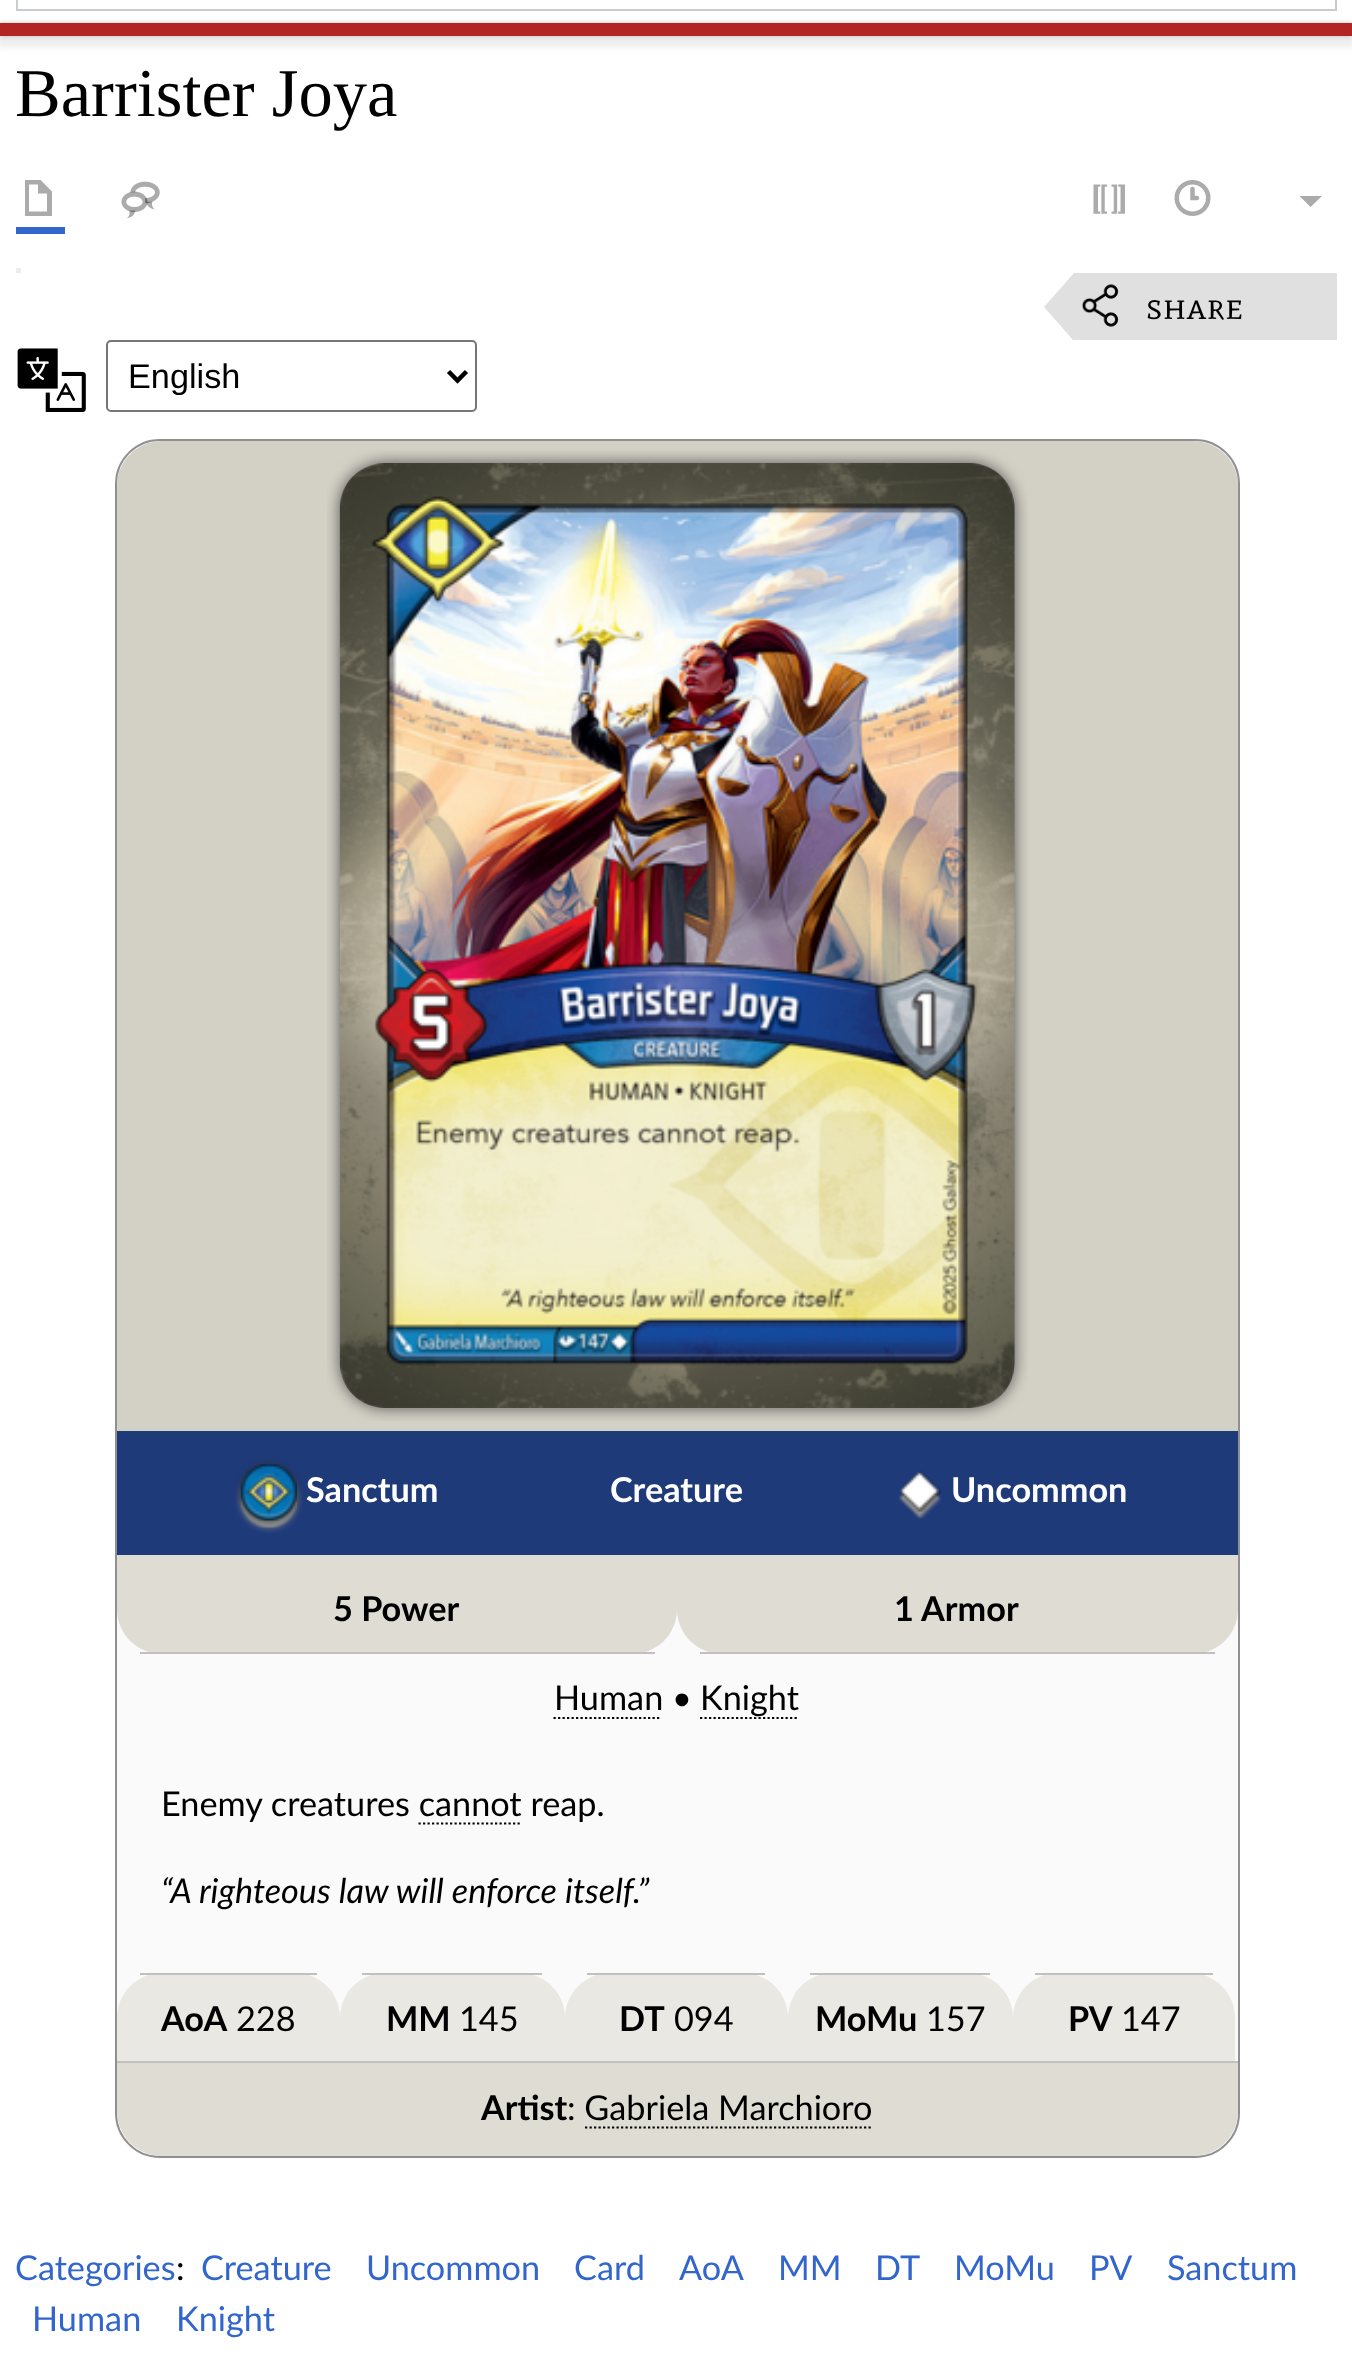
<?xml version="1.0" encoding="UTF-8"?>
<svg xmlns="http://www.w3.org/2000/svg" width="1352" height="2364">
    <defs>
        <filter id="blur1" x="-50%" y="-200%" width="200%" height="500%"><feGaussianBlur stdDeviation="2"/></filter>
        <filter id="blur2" x="-50%" y="-200%" width="200%" height="500%"><feGaussianBlur stdDeviation="3.5"/></filter>
    </defs>
    <rect width="100%" height="100%" fill="#FFFFFF"/>
    <rect x="17" y="-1" width="1319" height="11" fill="none" stroke="#C8CCD1" stroke-width="2"/>
    <rect x="0" y="23" width="1352" height="13" fill="#000000" fill-opacity="0.2" filter="url(#blur1)"/>
    <rect x="-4" y="25" width="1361" height="22" fill="#000000" fill-opacity="0.07" filter="url(#blur2)"/>
    <rect x="0" y="23" width="1352" height="13" fill="#B32424"/>
    <text x="15" y="116" font-family="Liberation Serif" font-size="68.5" fill="#000000">Barrister Joya</text>
    <rect x="16" y="227" width="49" height="7" fill="#3366CC"/>
    <path d="M 25 180 V 216 H 52 V 191.5 L 40.5 180 Z M 29 184.5 H 38 V 193.5 H 47 V 211.5 H 29 Z" fill="#ABABAB"/>
    <image x="121" y="181" width="39" height="38" href="img_01.png"/>
    <image x="1093" y="184" width="32" height="30" href="img_02.png"/>
    <image x="1174" y="180" width="37" height="36" href="img_03.png"/>
    <path d="M 1322 196 L 1310.5 207 L 1299.5 196 Z" fill="#ABABAB"/>
    <rect x="16" y="268" width="5" height="5" fill="#EAECF0"/>
    <path d="M 1074 273 H 1337 V 340 H 1073 L 1044 307 Z" fill="#E0E0E0"/>
    <image x="1082" y="284" width="37" height="43" href="img_04.png"/>
    <text x="1146" y="319" font-family="Mate SC" font-size="38" fill="#000000">share</text>
    <image x="17" y="348" width="69" height="64" href="img_05.png"/>
    <rect x="107" y="341" width="369" height="70" rx="4" fill="none" stroke="#767676" stroke-width="2"/>
    <path d="M 448.5 371.5 L 457.5 380.5 L 466.5 371.5" fill="none" stroke="#000000" stroke-width="4.5"/>
    <text x="128" y="388" font-family="Liberation Sans" font-size="34.25" fill="#000000">English</text>
    <rect x="116" y="440" width="1123" height="1717" rx="44" fill="#FAFAFA" stroke="#909090" stroke-width="2"/>
    <path d="M 162 441 H 1193 C 1218 441 1238 461 1238 486 V 1431 H 117 V 486 C 117 461 137 441 162 441 Z" fill="#D3D0C5"/>
    <image x="327" y="450" width="701" height="971" href="img_06.png"/>
    <rect x="117" y="1431" width="1121" height="124" fill="#1E3A79"/>
    <image x="235" y="1459" width="68" height="75" href="img_07.png"/>
    <text x="306" y="1502" font-family="Lato" font-size="34.25" font-weight="700" fill="#FFFFFF">Sanctum</text>
    <text x="610" y="1502" font-family="Lato" font-size="34.25" font-weight="700" fill="#FFFFFF">Creature</text>
    <image x="898" y="1470" width="44" height="49" href="img_08.png"/>
    <text x="951" y="1502" font-family="Lato" font-size="34.25" font-weight="700" fill="#FFFFFF">Uncommon</text>
    <path d="M 117 1555 H 677 V 1609 C 677 1634 657 1654 632 1654 H 162 C 137 1654 117 1634 117 1609 Z" fill="#DEDCD3"/>
    <rect x="140" y="1652" width="515" height="2" fill="#C0C0C0"/>
    <text x="333" y="1621" font-family="Lato" font-size="34.25" font-weight="700" fill="#000000">5 Power</text>
    <path d="M 677 1555 H 1238 V 1609 C 1238 1634 1218 1654 1193 1654 H 722 C 697 1654 677 1634 677 1609 Z" fill="#DEDCD3"/>
    <rect x="700" y="1652" width="515" height="2" fill="#C0C0C0"/>
    <text x="894" y="1621" font-family="Lato" font-size="34.25" font-weight="700" fill="#000000">1 Armor</text>
    <text x="554" y="1710" font-family="Lato" font-size="34.25" fill="#000000">Human •</text>
    <path d="M 553.5 1718 H 661.5" fill="none" stroke="#000000" stroke-width="2.2" stroke-dasharray="2.25 2.25"/>
    <path d="M 700 1718 H 799" fill="none" stroke="#000000" stroke-width="2.2" stroke-dasharray="2.25 2.25"/>
    <text x="700" y="1710" font-family="Lato" font-size="34.25" fill="#000000">Knight</text>
    <text x="161" y="1816" font-family="Lato" font-size="34.25" fill="#000000">Enemy creatures cannot reap.</text>
    <path d="M 418.5 1823.5 H 520" fill="none" stroke="#000000" stroke-width="2.2" stroke-dasharray="2.25 2.25"/>
    <text x="161" y="1903" font-family="Lato" font-size="34.25" font-style="italic" fill="#000000">“A righteous law will enforce itself.”</text>
    <path d="M 162 1973 H 295 C 320 1973 340 1993 340 2018 V 2061 H 117 V 2018 C 117 1993 137 1973 162 1973 Z" fill="#E9E8E2"/>
    <rect x="140" y="1973" width="177" height="2" fill="#C0C0C0"/>
    <text x="161" y="2031" font-family="Lato" font-size="34.25" font-weight="700" fill="#000000">AoA</text>
    <text x="236" y="2031" font-family="Lato" font-size="34.25" fill="#000000">228</text>
    <path d="M 385 1973 H 520 C 545 1973 565 1993 565 2018 V 2061 H 340 V 2018 C 340 1993 360 1973 385 1973 Z" fill="#E9E8E2"/>
    <rect x="362" y="1973" width="180" height="2" fill="#C0C0C0"/>
    <text x="386" y="2031" font-family="Lato" font-size="34.25" font-weight="700" fill="#000000">MM</text>
    <text x="459" y="2031" font-family="Lato" font-size="34.25" fill="#000000">145</text>
    <path d="M 610 1973 H 743 C 768 1973 788 1993 788 2018 V 2061 H 565 V 2018 C 565 1993 585 1973 610 1973 Z" fill="#E9E8E2"/>
    <rect x="587" y="1973" width="178" height="2" fill="#C0C0C0"/>
    <text x="619" y="2031" font-family="Lato" font-size="34.25" font-weight="700" fill="#000000">DT</text>
    <text x="674" y="2031" font-family="Lato" font-size="34.25" fill="#000000">094</text>
    <path d="M 833 1973 H 968 C 993 1973 1013 1993 1013 2018 V 2061 H 788 V 2018 C 788 1993 808 1973 833 1973 Z" fill="#E9E8E2"/>
    <rect x="810" y="1973" width="180" height="2" fill="#C0C0C0"/>
    <text x="815" y="2031" font-family="Lato" font-size="34.25" font-weight="700" fill="#000000">MoMu</text>
    <text x="926" y="2031" font-family="Lato" font-size="34.25" fill="#000000">157</text>
    <path d="M 1058 1973 H 1190 C 1215 1973 1235 1993 1235 2018 V 2061 H 1013 V 2018 C 1013 1993 1033 1973 1058 1973 Z" fill="#E9E8E2"/>
    <rect x="1035" y="1973" width="178" height="2" fill="#C0C0C0"/>
    <text x="1068" y="2031" font-family="Lato" font-size="34.25" font-weight="700" fill="#000000">PV</text>
    <text x="1121" y="2031" font-family="Lato" font-size="34.25" fill="#000000">147</text>
    <path d="M 117 2061 H 1238 V 2111 C 1238 2136 1218 2156 1193 2156 H 162 C 137 2156 117 2136 117 2111 Z" fill="#DEDCD3"/>
    <rect x="117" y="2061" width="1121" height="2" fill="#C0C0C0"/>
    <text x="481" y="2120" font-family="Lato" font-size="34.25" font-weight="700" fill="#000000">Artist</text>
    <text x="567" y="2120" font-family="Lato" font-size="34.25" fill="#000000">: Gabriela Marchioro</text>
    <path d="M 585 2127.5 H 871" fill="none" stroke="#000000" stroke-width="2.2" stroke-dasharray="2.25 2.25"/>
    <text x="201" y="2280" font-family="Lato" font-size="34.25" fill="#3366CC">Creature</text>
    <text x="366" y="2280" font-family="Lato" font-size="34.25" fill="#3366CC">Uncommon</text>
    <text x="574" y="2280" font-family="Lato" font-size="34.25" fill="#3366CC">Card</text>
    <text x="679" y="2280" font-family="Lato" font-size="34.25" fill="#3366CC">AoA</text>
    <text x="778" y="2280" font-family="Lato" font-size="34.25" fill="#3366CC">MM</text>
    <text x="875" y="2280" font-family="Lato" font-size="34.25" fill="#3366CC">DT</text>
    <text x="954" y="2280" font-family="Lato" font-size="34.25" fill="#3366CC">MoMu</text>
    <text x="1089" y="2280" font-family="Lato" font-size="34.25" fill="#3366CC">PV</text>
    <text x="1167" y="2280" font-family="Lato" font-size="34.25" fill="#3366CC">Sanctum</text>
    <text x="32" y="2331" font-family="Lato" font-size="34.25" fill="#3366CC">Human</text>
    <text x="176" y="2331" font-family="Lato" font-size="34.25" fill="#3366CC">Knight</text>
    <text x="15" y="2280" font-family="Lato" font-size="34.25" fill="#3366CC">Categories</text>
    <text x="176" y="2280" font-family="Lato" font-size="34.25" fill="#000000">:</text>
</svg>
